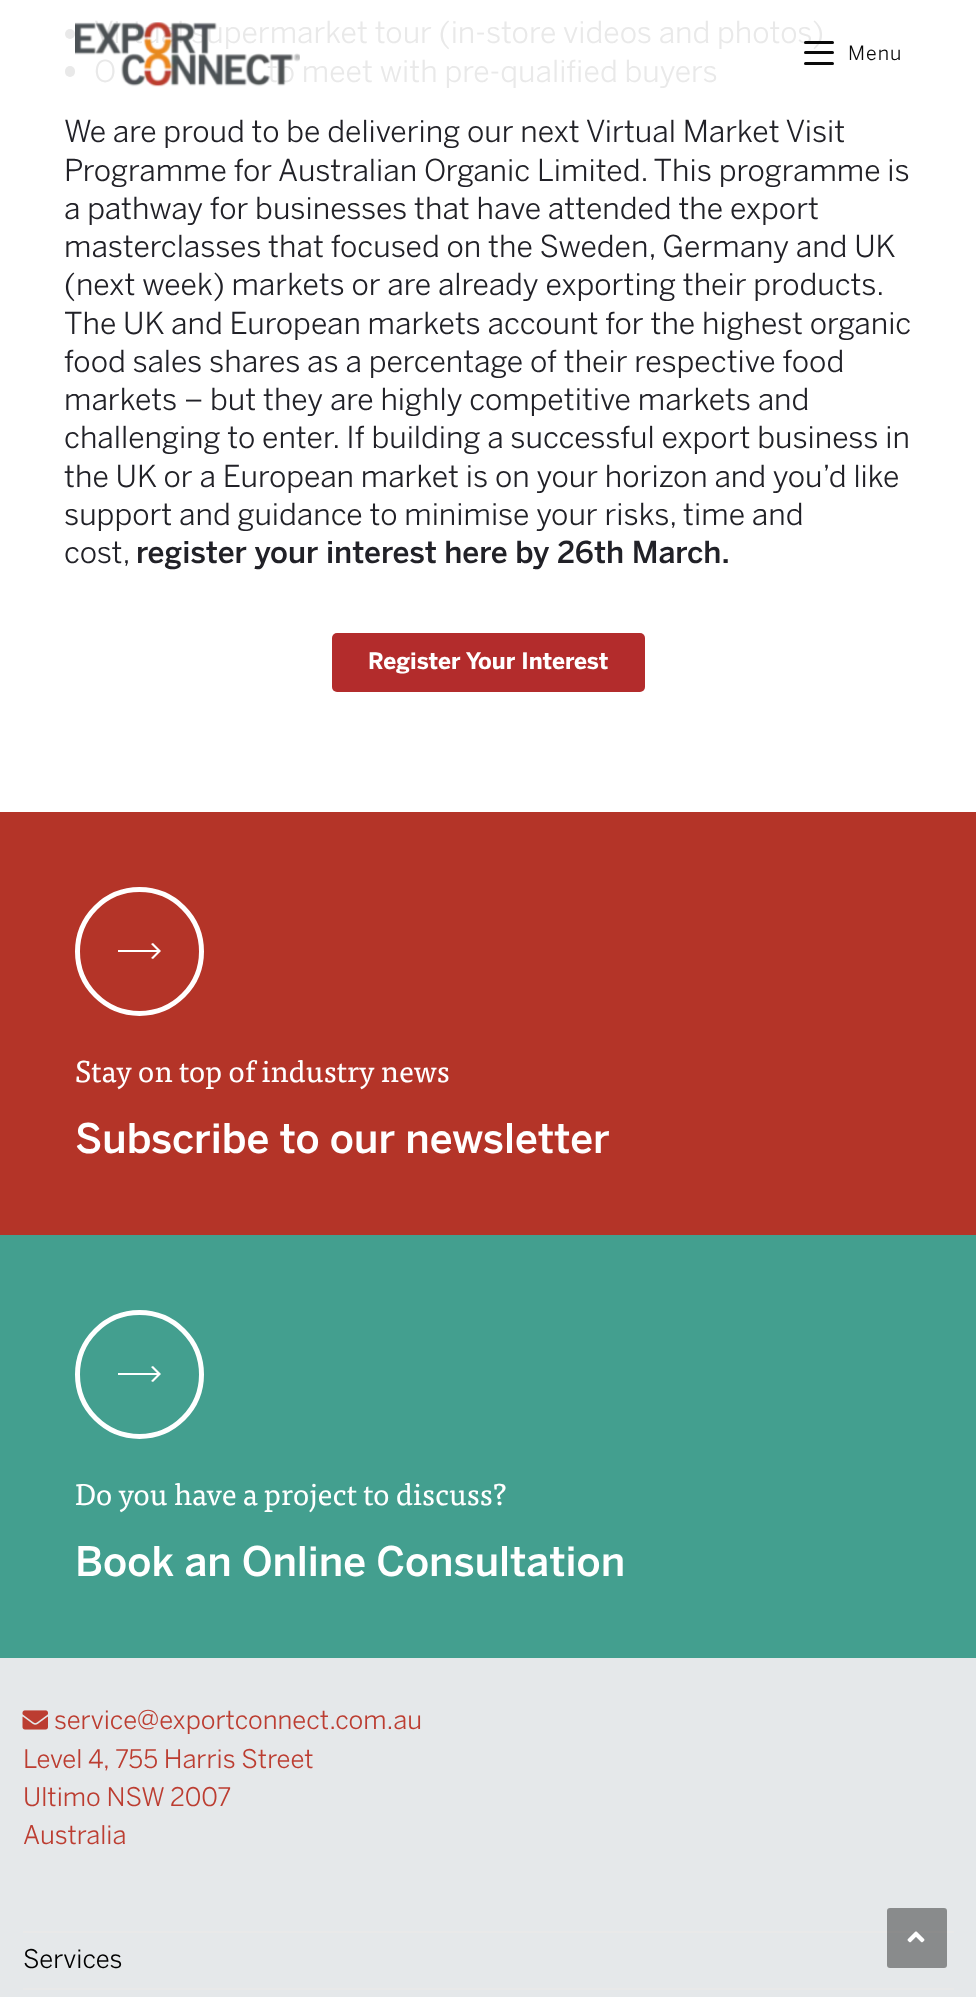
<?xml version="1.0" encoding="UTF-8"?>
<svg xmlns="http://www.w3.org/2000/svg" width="976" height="1997">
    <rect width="100%" height="100%" fill="#FFFFFF"/>
    <circle cx="70" cy="34" r="5" fill="#E9E9E9"/>
    <text x="94" y="43" font-family="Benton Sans" font-size="30" fill="#E9E9E9">Virtual supermarket tour (in-store videos and photos)</text>
    <rect x="65" y="66" width="10" height="11" rx="5" fill="#E9E9E9"/>
    <text x="94" y="82" font-family="Benton Sans" font-size="30" fill="#E9E9E9">O</text>
    <text x="267" y="82" font-family="Benton Sans" font-size="30" fill="#E9E9E9">to meet with pre-qualified buyers</text>
    <text font-family="Benton Sans" font-size="30" fill="#212127">
        <tspan x="64" y="142">We are proud to be delivering our next Virtual Market Visit</tspan>
        <tspan x="64" y="181">Programme for Australian Organic Limited. This programme is</tspan>
        <tspan x="64" y="219">a pathway for businesses that have attended the export</tspan>
        <tspan x="64" y="257">masterclasses that focused on the Sweden, Germany and UK</tspan>
        <tspan x="64" y="295">(next week) markets or are already exporting their products.</tspan>
        <tspan x="64" y="334">The UK and European markets account for the highest organic</tspan>
        <tspan x="64" y="372">food sales shares as a percentage of their respective food</tspan>
        <tspan x="64" y="410">markets – but they are highly competitive markets and</tspan>
        <tspan x="64" y="448">challenging to enter. If building a successful export business in</tspan>
        <tspan x="64" y="487">the UK or a European market is on your horizon and you’d like</tspan>
        <tspan x="64" y="525">support and guidance to minimise your risks, time and</tspan>
        <tspan x="64" y="563">cost,</tspan>
    </text>
    <text x="136" y="563" font-family="Benton Sans" font-size="30" font-weight="500" fill="#212127">register your interest here by 26th March.</text>
    <rect x="332" y="633" width="313" height="59" rx="5" fill="#B32C2C"/>
    <text x="368" y="669" font-family="Benton Sans" font-size="22.5" font-weight="700" fill="#FFFFFF">Register Your Interest</text>
    <rect x="0" y="812" width="976" height="423" fill="#B43428"/>
    <circle cx="139.5" cy="951.5" r="62" fill="none" stroke="#FFFFFF" stroke-width="5"/>
    <path d="M 118 952 H 157 L 151 958 L 153 959 L 161 951 L 153 943 L 151 944 L 157 950 H 118 Z" fill="#FFFFFF"/>
    <text x="75" y="1082" font-family="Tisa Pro" font-size="30" fill="#FFFFFF">Stay on top of industry news</text>
    <text x="75" y="1153" font-family="Benton Sans" font-size="40.5" font-weight="500" fill="#FFFFFF">Subscribe to our newsletter</text>
    <rect x="0" y="1235" width="976" height="423" fill="#439F8F"/>
    <circle cx="139.5" cy="1374.5" r="62" fill="none" stroke="#FFFFFF" stroke-width="5"/>
    <path d="M 118 1375 H 157 L 151 1381 L 153 1382 L 161 1374 L 153 1366 L 151 1367 L 157 1373 H 118 Z" fill="#FFFFFF"/>
    <text x="75" y="1505" font-family="Tisa Pro" font-size="30" fill="#FFFFFF">Do you have a project to discuss?</text>
    <text x="75" y="1576" font-family="Benton Sans" font-size="40.5" font-weight="500" fill="#FFFFFF">Book an Online Consultation</text>
    <image x="75" y="22" width="225" height="65" href="img_01.png"/>
    <rect x="804" y="51" width="30" height="3" rx="1.5" fill="#0A0A0A"/>
    <rect x="804" y="41" width="30" height="3" rx="1.5" fill="#0A0A0A"/>
    <rect x="804" y="62" width="30" height="3" rx="1.5" fill="#0A0A0A"/>
    <text x="848" y="60" font-family="Benton Sans" font-size="19.5" letter-spacing="1" fill="#0A0A0A">Menu</text>
    <rect x="0" y="1658" width="976" height="339" fill="#E5E8EA"/>
    <image x="22" y="1710" width="26" height="20" href="img_02.png"/>
    <text x="54" y="1729" font-family="Benton Sans" font-size="25.5" fill="#BC3D31">service@exportconnect.com.au</text>
    <text font-family="Benton Sans" font-size="25.5" fill="#BC3D31">
        <tspan x="23" y="1768">Level 4, 755 Harris Street</tspan>
        <tspan x="23" y="1806">Ultimo NSW 2007</tspan>
        <tspan x="23" y="1844">Australia</tspan>
    </text>
    <rect x="23" y="1931" width="931" height="2" fill="#E9E9E9"/>
    <rect x="23" y="1988" width="931" height="2" fill="#E9E9E9"/>
    <text x="23" y="1968" font-family="Benton Sans" font-size="25.5" fill="#000000">Services</text>
    <rect x="887" y="1908" width="60" height="60" rx="3" fill="#000000" fill-opacity="0.4"/>
    <image x="907" y="1931" width="18" height="12" href="img_03.png"/>
</svg>
